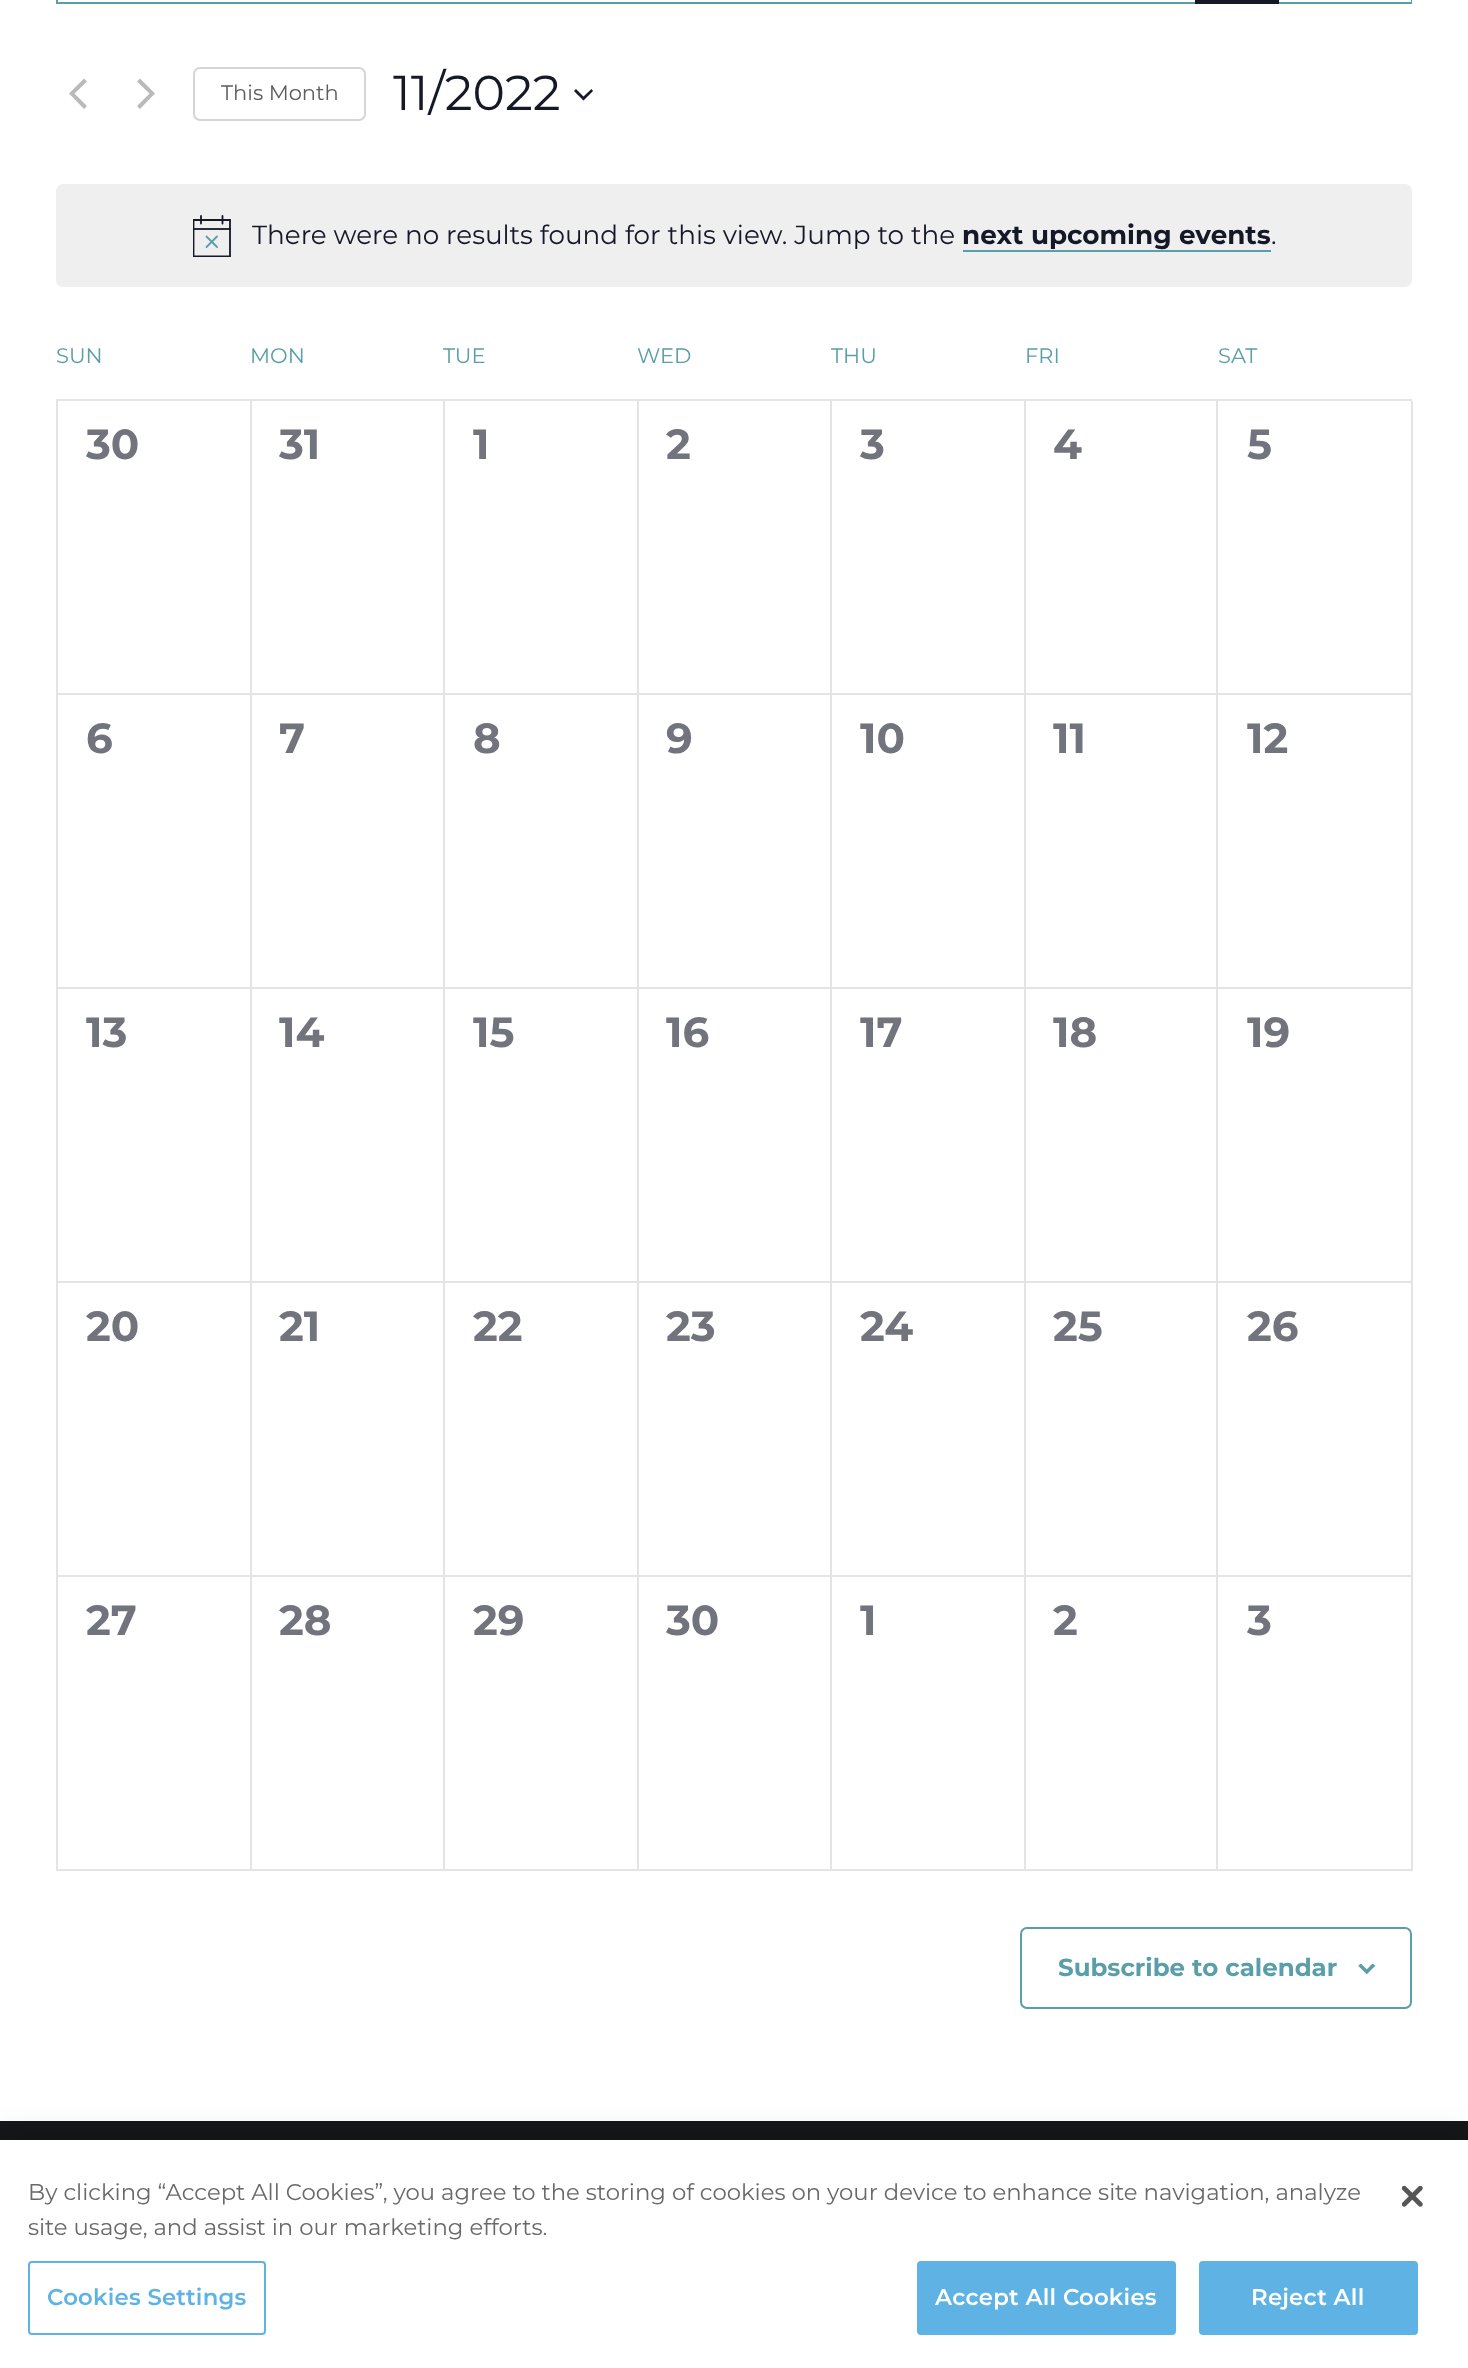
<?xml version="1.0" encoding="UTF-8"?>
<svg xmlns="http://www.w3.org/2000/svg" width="1468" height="2368">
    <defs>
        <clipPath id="clip1"><rect x="193" y="215" width="38" height="42"/></clipPath>
        <filter id="blur1" x="-50%" y="-200%" width="200%" height="500%"><feGaussianBlur stdDeviation="16"/></filter>
    </defs>
    <rect width="100%" height="100%" fill="#FFFFFF"/>
    <rect x="57" y="-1" width="1354" height="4" fill="none" stroke="#5A9EAA" stroke-width="2"/>
    <rect x="1410" y="0" width="1" height="2" fill="#FFFFFF"/>
    <rect x="1195" y="0" width="84" height="4" fill="#141827"/>
    <path d="M 87 106 L 84 109 L 69 93.5 L 84 78.5 L 87 81.5 L 74.5 93.5 Z" fill="#BABABA"/>
    <path d="M 137 81.5 L 140 78.5 L 155 93.5 L 140 109 L 137 106 L 149.5 93.5 Z" fill="#BABABA"/>
    <rect x="194" y="68" width="171" height="52" rx="6" fill="none" stroke="#D5D5D5" stroke-width="2"/>
    <text x="221" y="100" font-family="Montserrat" font-size="21" fill="#5D5D5D">This Month</text>
    <text x="393" y="110" font-family="Montserrat" font-size="49" fill="#141827">11/2022</text>
    <path d="M 576 89 L 583.5 96.5 L 591.5 89 L 593 91 L 583.5 100.5 L 574 91 Z" fill="#141827" fill-rule="evenodd"/>
    <rect x="56" y="184" width="1356" height="103" rx="7" fill="#EFEFF0"/>
    <g clip-path="url(#clip1)">
        <path d="M 193.5 220 H 230 V 256.5 H 193.5 Z" fill="none" stroke="#141827" stroke-width="1.8"/>
    </g>
    <path d="M 206.5 236.5 L 217 247 M 217 236.5 L 206.5 247" fill="none" stroke="#5A9EAA" stroke-width="1.8" stroke-linecap="round"/>
    <path d="M 201 216 V 223.5 M 222.5 216 V 223.5" fill="none" stroke="#141827" stroke-width="1.8" stroke-linecap="round"/>
    <rect x="193" y="228" width="38" height="2" fill="#141827" fill-opacity="0.9"/>
    <text x="252" y="244" font-family="Montserrat" font-size="26.25" fill="#141827">There were no results found for this view. Jump to the</text>
    <text x="962" y="244" font-family="Montserrat" font-size="26.25" font-weight="700" fill="#141827">next upcoming events</text>
    <rect x="963" y="250" width="308" height="2" fill="#5A9EAA"/>
    <text x="1271" y="244" font-family="Montserrat" font-size="26.25" fill="#141827">.</text>
    <text x="56" y="363" font-family="Montserrat" font-size="21" fill="#5A9EAA">SUN</text>
    <text x="250" y="363" font-family="Montserrat" font-size="21" fill="#5A9EAA">MON</text>
    <text x="443" y="363" font-family="Montserrat" font-size="21" fill="#5A9EAA">TUE</text>
    <text x="637" y="363" font-family="Montserrat" font-size="21" fill="#5A9EAA">WED</text>
    <text x="831" y="363" font-family="Montserrat" font-size="21" fill="#5A9EAA">THU</text>
    <text x="1025" y="363" font-family="Montserrat" font-size="21" fill="#5A9EAA">FRI</text>
    <text x="1218" y="363" font-family="Montserrat" font-size="21" fill="#5A9EAA">SAT</text>
    <rect x="56" y="399" width="1356" height="2" fill="#E4E4E4"/>
    <rect x="56" y="401" width="2" height="1470" fill="#E4E4E4"/>
    <rect x="250" y="401" width="2" height="1470" fill="#E4E4E4"/>
    <rect x="58" y="693" width="194" height="2" fill="#E4E4E4"/>
    <text x="86" y="459" font-family="Montserrat" font-size="42" font-weight="700" fill="#72747D">30</text>
    <rect x="443" y="401" width="2" height="1470" fill="#E4E4E4"/>
    <rect x="252" y="693" width="193" height="2" fill="#E4E4E4"/>
    <text x="279" y="459" font-family="Montserrat" font-size="42" font-weight="700" fill="#72747D">31</text>
    <rect x="637" y="401" width="2" height="1470" fill="#E4E4E4"/>
    <rect x="445" y="693" width="194" height="2" fill="#E4E4E4"/>
    <text x="473" y="459" font-family="Montserrat" font-size="42" font-weight="700" fill="#72747D">1</text>
    <rect x="830" y="401" width="2" height="1470" fill="#E4E4E4"/>
    <rect x="639" y="693" width="192" height="2" fill="#E4E4E4"/>
    <text x="666" y="459" font-family="Montserrat" font-size="42" font-weight="700" fill="#72747D">2</text>
    <rect x="1024" y="401" width="2" height="1470" fill="#E4E4E4"/>
    <rect x="831" y="693" width="195" height="2" fill="#E4E4E4"/>
    <text x="860" y="459" font-family="Montserrat" font-size="42" font-weight="700" fill="#72747D">3</text>
    <rect x="1216" y="401" width="2" height="1470" fill="#E4E4E4"/>
    <rect x="1026" y="693" width="192" height="2" fill="#E4E4E4"/>
    <text x="1053" y="459" font-family="Montserrat" font-size="42" font-weight="700" fill="#72747D">4</text>
    <rect x="1411" y="401" width="2" height="1470" fill="#E4E4E4"/>
    <rect x="1218" y="693" width="194" height="2" fill="#E4E4E4"/>
    <text x="1247" y="459" font-family="Montserrat" font-size="42" font-weight="700" fill="#72747D">5</text>
    <rect x="58" y="987" width="1354" height="2" fill="#E4E4E4"/>
    <text x="86" y="753" font-family="Montserrat" font-size="42" font-weight="700" fill="#72747D">6</text>
    <text x="279" y="753" font-family="Montserrat" font-size="42" font-weight="700" fill="#72747D">7</text>
    <text x="473" y="753" font-family="Montserrat" font-size="42" font-weight="700" fill="#72747D">8</text>
    <text x="666" y="753" font-family="Montserrat" font-size="42" font-weight="700" fill="#72747D">9</text>
    <text x="860" y="753" font-family="Montserrat" font-size="42" font-weight="700" fill="#72747D">10</text>
    <text x="1053" y="753" font-family="Montserrat" font-size="42" font-weight="700" fill="#72747D">11</text>
    <text x="1247" y="753" font-family="Montserrat" font-size="42" font-weight="700" fill="#72747D">12</text>
    <rect x="58" y="1281" width="1354" height="2" fill="#E4E4E4"/>
    <text x="86" y="1047" font-family="Montserrat" font-size="42" font-weight="700" fill="#72747D">13</text>
    <text x="279" y="1047" font-family="Montserrat" font-size="42" font-weight="700" fill="#72747D">14</text>
    <text x="473" y="1047" font-family="Montserrat" font-size="42" font-weight="700" fill="#72747D">15</text>
    <text x="666" y="1047" font-family="Montserrat" font-size="42" font-weight="700" fill="#72747D">16</text>
    <text x="860" y="1047" font-family="Montserrat" font-size="42" font-weight="700" fill="#72747D">17</text>
    <text x="1053" y="1047" font-family="Montserrat" font-size="42" font-weight="700" fill="#72747D">18</text>
    <text x="1247" y="1047" font-family="Montserrat" font-size="42" font-weight="700" fill="#72747D">19</text>
    <rect x="58" y="1575" width="1354" height="2" fill="#E4E4E4"/>
    <text x="86" y="1341" font-family="Montserrat" font-size="42" font-weight="700" fill="#72747D">20</text>
    <text x="279" y="1341" font-family="Montserrat" font-size="42" font-weight="700" fill="#72747D">21</text>
    <text x="473" y="1341" font-family="Montserrat" font-size="42" font-weight="700" fill="#72747D">22</text>
    <text x="666" y="1341" font-family="Montserrat" font-size="42" font-weight="700" fill="#72747D">23</text>
    <text x="860" y="1341" font-family="Montserrat" font-size="42" font-weight="700" fill="#72747D">24</text>
    <text x="1053" y="1341" font-family="Montserrat" font-size="42" font-weight="700" fill="#72747D">25</text>
    <text x="1247" y="1341" font-family="Montserrat" font-size="42" font-weight="700" fill="#72747D">26</text>
    <rect x="58" y="1869" width="1354" height="2" fill="#E4E4E4"/>
    <text x="86" y="1635" font-family="Montserrat" font-size="42" font-weight="700" fill="#72747D">27</text>
    <text x="279" y="1635" font-family="Montserrat" font-size="42" font-weight="700" fill="#72747D">28</text>
    <text x="473" y="1635" font-family="Montserrat" font-size="42" font-weight="700" fill="#72747D">29</text>
    <text x="666" y="1635" font-family="Montserrat" font-size="42" font-weight="700" fill="#72747D">30</text>
    <text x="860" y="1635" font-family="Montserrat" font-size="42" font-weight="700" fill="#72747D">1</text>
    <text x="1053" y="1635" font-family="Montserrat" font-size="42" font-weight="700" fill="#72747D">2</text>
    <text x="1247" y="1635" font-family="Montserrat" font-size="42" font-weight="700" fill="#72747D">3</text>
    <rect x="1021" y="1928" width="390" height="80" rx="6" fill="none" stroke="#5A9EAA" stroke-width="2"/>
    <text x="1058" y="1976" font-family="Montserrat" font-size="24.5" font-weight="700" fill="#5A9EAA">Subscribe to calendar</text>
    <image x="1358" y="1964" width="18" height="10" href="img_01.png"/>
    <rect x="0" y="2121" width="1468" height="19" fill="#141618"/>
    <rect x="0" y="2140" width="1468" height="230" fill="#000000" fill-opacity="0.2" filter="url(#blur1)"/>
    <rect x="0" y="2140" width="1468" height="228" fill="#FFFFFF"/>
    <text font-family="Montserrat" font-size="22.75" fill="#696969">
        <tspan x="28" y="2200">By clicking “Accept All Cookies”, you agree to the storing of cookies on your device to enhance site navigation, analyze</tspan>
        <tspan x="28" y="2235">site usage, and assist in our marketing efforts.</tspan>
    </text>
    <rect x="29" y="2262" width="236" height="72" rx="3" fill="none" stroke="#5EB3E4" stroke-width="2"/>
    <text x="47" y="2305" font-family="Montserrat" font-size="22.75" font-weight="600" letter-spacing="0.25" fill="#5EB3E4">Cookies Settings</text>
    <rect x="918" y="2262" width="257" height="72" rx="3" fill="#5EB3E4" stroke="#5EB3E4" stroke-width="2"/>
    <text x="935" y="2305" font-family="Montserrat" font-size="22.75" font-weight="600" letter-spacing="0.25" fill="#FFFFFF">Accept All Cookies</text>
    <rect x="1200" y="2262" width="217" height="72" rx="3" fill="#5EB3E4" stroke="#5EB3E4" stroke-width="2"/>
    <text x="1251" y="2305" font-family="Montserrat" font-size="22.75" font-weight="600" letter-spacing="0.25" fill="#FFFFFF">Reject All</text>
    <image x="1402" y="2186" width="21" height="21" href="img_02.png"/>
</svg>
